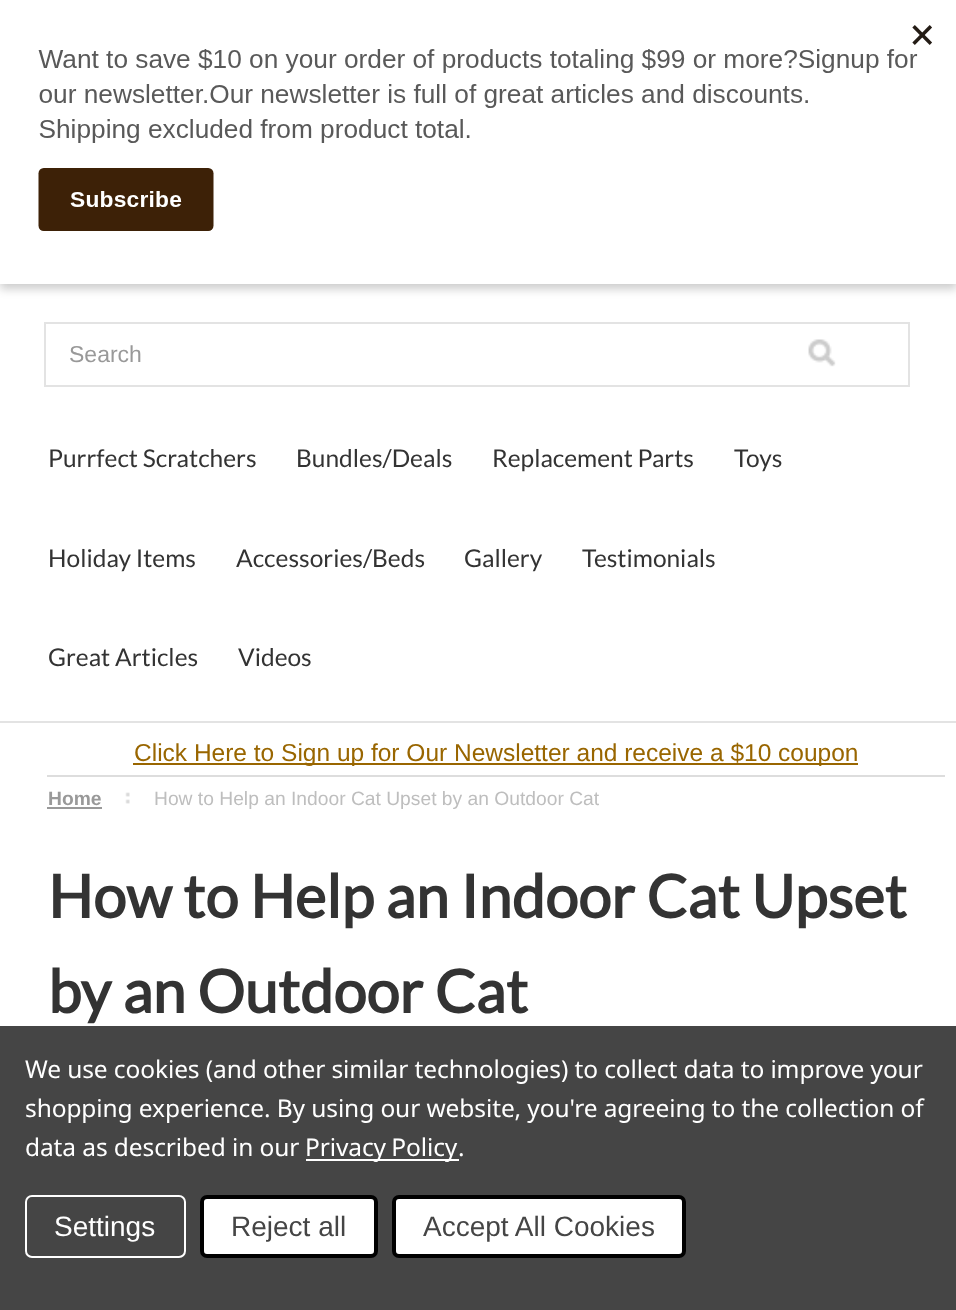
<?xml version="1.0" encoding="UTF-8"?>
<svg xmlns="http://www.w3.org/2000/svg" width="956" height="1310">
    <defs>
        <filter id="blur1" x="-50%" y="-200%" width="200%" height="500%"><feGaussianBlur stdDeviation="5"/></filter>
    </defs>
    <rect width="100%" height="100%" fill="#FFFFFF"/>
    <rect x="0" y="5" width="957" height="284" fill="#000000" fill-opacity="0.2" filter="url(#blur1)"/>
    <rect x="0" y="0" width="956" height="284" fill="#FFFFFF"/>
    <image x="38" y="25" width="894" height="206" href="img_01.png"/>
    <rect x="0" y="721" width="956" height="2" fill="#E3E3E3"/>
    <rect x="45" y="323" width="864" height="63" fill="none" stroke="#E3E3E3" stroke-width="2"/>
    <text x="69" y="362" font-family="Liberation Sans" font-size="23" fill="#999999">Search</text>
    <image x="808" y="339" width="28" height="28" href="img_02.png"/>
    <text x="48" y="467" font-family="Lato" font-size="24.5" fill="#333333">Purrfect Scratchers</text>
    <text x="296" y="467" font-family="Lato" font-size="24.5" fill="#333333">Bundles/Deals</text>
    <text x="492" y="467" font-family="Lato" font-size="24.5" fill="#333333">Replacement Parts</text>
    <text x="734" y="467" font-family="Lato" font-size="24.5" fill="#333333">Toys</text>
    <text x="48" y="567" font-family="Lato" font-size="24.5" fill="#333333">Holiday Items</text>
    <text x="236" y="567" font-family="Lato" font-size="24.5" fill="#333333">Accessories/Beds</text>
    <text x="464" y="567" font-family="Lato" font-size="24.5" fill="#333333">Gallery</text>
    <text x="582" y="567" font-family="Lato" font-size="24.5" fill="#333333">Testimonials</text>
    <text x="48" y="666" font-family="Lato" font-size="24.5" fill="#333333">Great Articles</text>
    <text x="238" y="666" font-family="Lato" font-size="24.5" fill="#333333">Videos</text>
    <rect x="47" y="775" width="898" height="2" fill="#DDDDDD"/>
    <rect x="133" y="763" width="725" height="2" fill="#996600"/>
    <text x="134" y="761" font-family="Liberation Sans" font-size="24.5" fill="#996600">Click Here to Sign up for Our Newsletter and receive a $10 coupon</text>
    <image x="125" y="792" width="5" height="12" href="img_03.png"/>
    <text x="48" y="805" font-family="Liberation Sans" font-size="19.25" font-weight="700" fill="#999999">Home</text>
    <rect x="47" y="807" width="55" height="2" fill="#999999"/>
    <text x="154" y="805" font-family="Liberation Sans" font-size="19.25" fill="#BEBEBE">How to Help an Indoor Cat Upset by an Outdoor Cat</text>
    <text font-family="Lato" font-size="59.5" font-weight="700" fill="#333333">
        <tspan x="48" y="918">How to Help an Indoor Cat Upset</tspan>
        <tspan x="48" y="1013">by an Outdoor Cat</tspan>
    </text>
    <rect x="0" y="1026" width="956" height="284" fill="#454545"/>
    <text font-family="Noto Sans" font-size="24.5" letter-spacing="-0.1" fill="#FFFFFF">
        <tspan x="25" y="1078">We use cookies (and other similar technologies) to collect data to improve your</tspan>
        <tspan x="25" y="1117">shopping experience. By using our website, you're agreeing to the collection of</tspan>
        <tspan x="25" y="1156">data as described in our</tspan>
    </text>
    <rect x="306" y="1159" width="153" height="2" fill="#FFFFFF"/>
    <text x="305" y="1156" word-spacing="-1" font-family="Noto Sans" font-size="24.5" letter-spacing="-0.1" fill="#FFFFFF">Privacy Policy</text>
    <text x="458" y="1156" font-family="Noto Sans" font-size="24.5" letter-spacing="-0.1" fill="#FFFFFF">.</text>
    <rect x="26" y="1196" width="159" height="61" rx="6" fill="none" stroke="#FFFFFF" stroke-width="2"/>
    <text x="54" y="1236" font-family="Liberation Sans" font-size="28" fill="#FFFFFF">Settings</text>
    <rect x="202" y="1197" width="174" height="59" rx="5" fill="#FFFFFF" stroke="#000000" stroke-width="4"/>
    <text x="231" y="1236" font-family="Liberation Sans" font-size="28" fill="#454545">Reject all</text>
    <rect x="394" y="1197" width="290" height="59" rx="5" fill="#FFFFFF" stroke="#000000" stroke-width="4"/>
    <text x="423" y="1236" font-family="Liberation Sans" font-size="28" fill="#454545">Accept All Cookies</text>
</svg>
